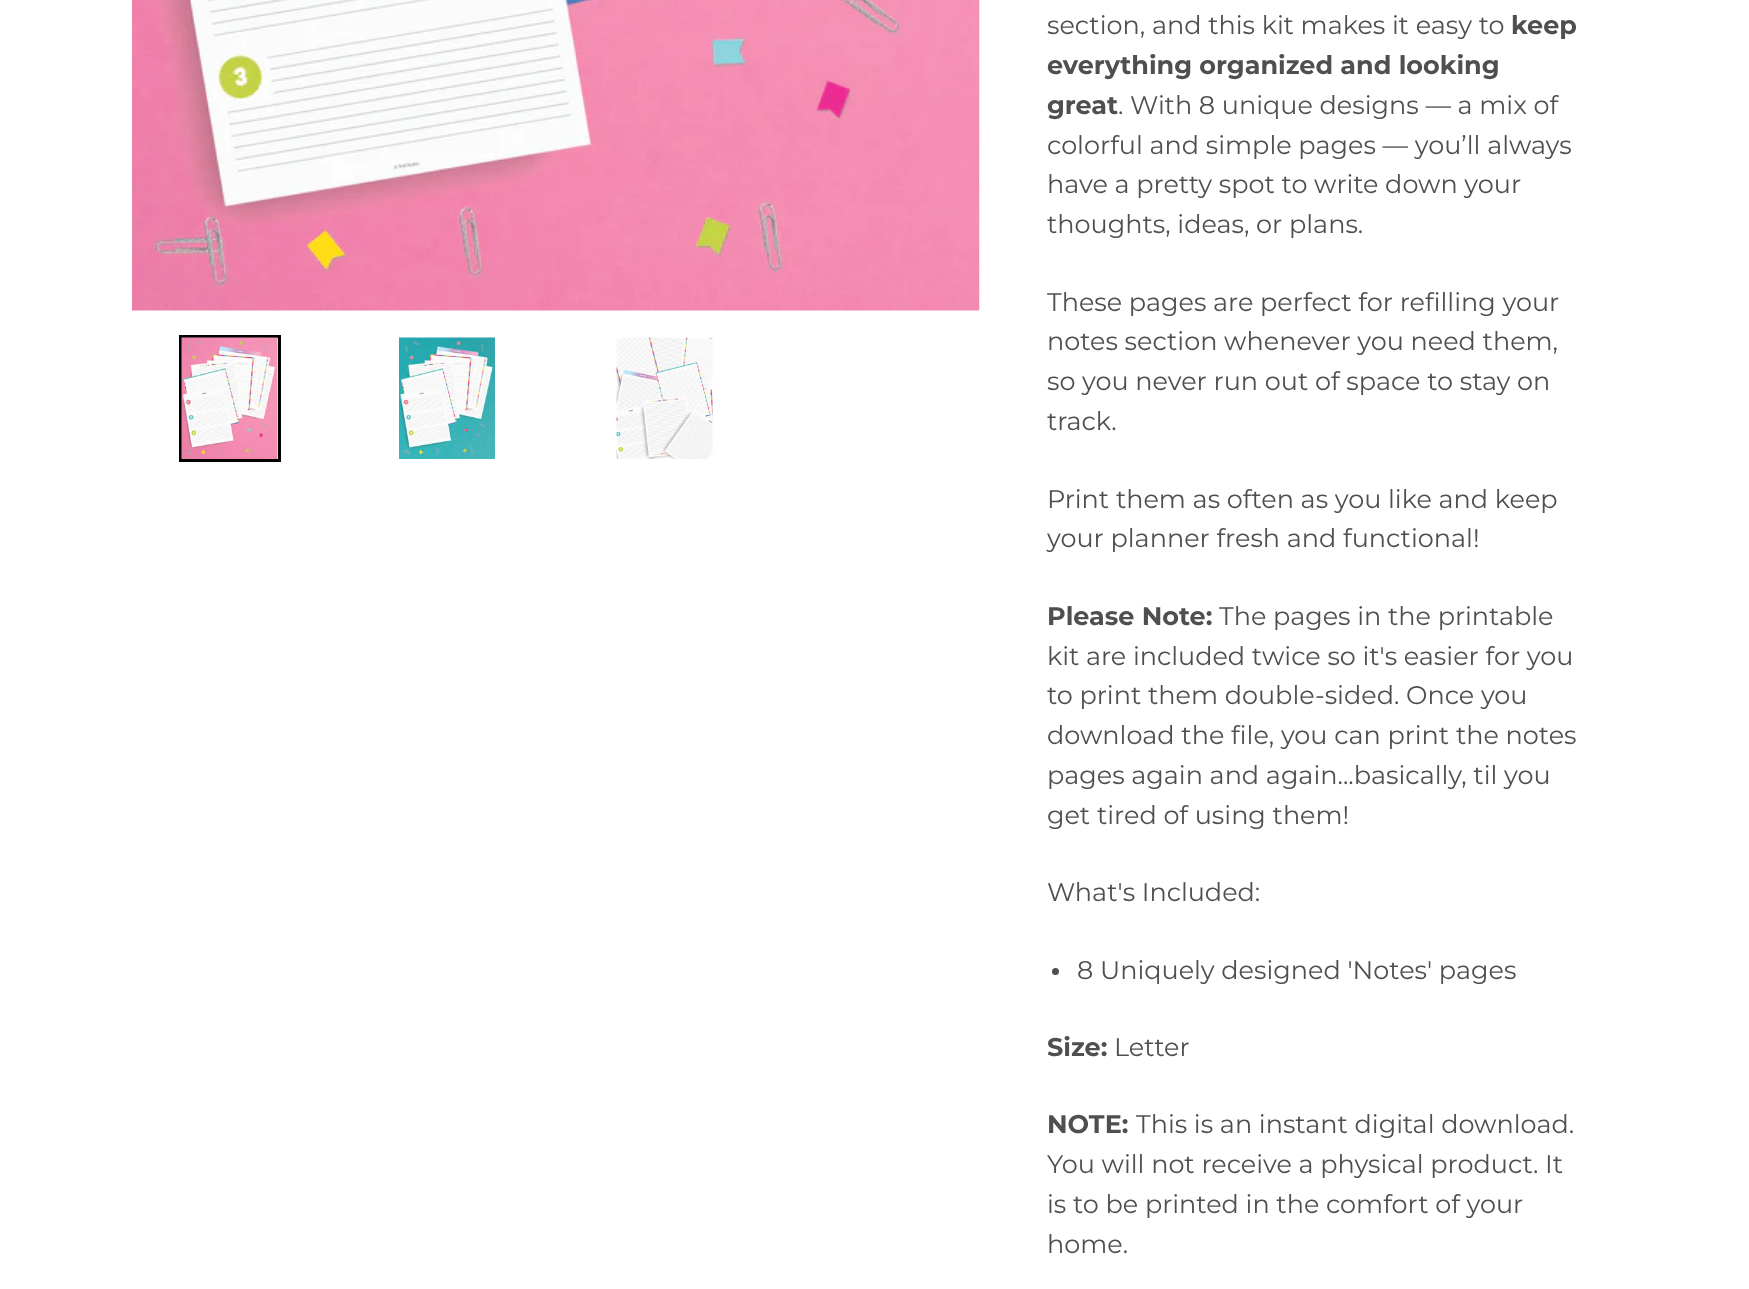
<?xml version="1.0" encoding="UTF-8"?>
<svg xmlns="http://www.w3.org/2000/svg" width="1749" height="1289">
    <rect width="100%" height="100%" fill="#FFFFFF"/>
    <image x="132" y="0" width="848" height="311" href="img_01.png"/>
    <rect x="180.5" y="336.5" width="99" height="124" fill="none" stroke="#000000" stroke-width="3"/>
    <image x="181" y="337" width="97" height="122" href="img_02.png"/>
    <image x="399" y="337" width="96" height="122" href="img_03.png"/>
    <image x="616" y="337" width="97" height="122" href="img_04.png"/>
    <text x="1047" y="34" font-family="Montserrat" font-size="25.5" fill="#4F4F4F">section, and this kit makes it easy to</text>
    <text x="1511" y="34" font-family="Montserrat" font-size="25.5" font-weight="700" fill="#4F4F4F">keep</text>
    <text font-family="Montserrat" font-size="25.5" font-weight="700" fill="#4F4F4F">
        <tspan x="1047" y="74">everything organized and looking</tspan>
        <tspan x="1047" y="114">great</tspan>
    </text>
    <text x="1118" y="114" font-family="Montserrat" font-size="25.5" fill="#4F4F4F">. With 8 unique designs — a mix of</text>
    <text font-family="Montserrat" font-size="25.5" fill="#4F4F4F">
        <tspan x="1047" y="154">colorful and simple pages — you’ll always</tspan>
        <tspan x="1047" y="193">have a pretty spot to write down your</tspan>
        <tspan x="1047" y="233">thoughts, ideas, or plans.</tspan>
    </text>
    <text font-family="Montserrat" font-size="25.5" fill="#4F4F4F">
        <tspan x="1047" y="311">These pages are perfect for refilling your</tspan>
        <tspan x="1047" y="350">notes section whenever you need them,</tspan>
        <tspan x="1047" y="390">so you never run out of space to stay on</tspan>
        <tspan x="1047" y="430">track.</tspan>
    </text>
    <text font-family="Montserrat" font-size="25.5" fill="#4F4F4F">
        <tspan x="1047" y="508">Print them as often as you like and keep</tspan>
        <tspan x="1047" y="547">your planner fresh and functional!</tspan>
    </text>
    <text x="1047" y="625" font-family="Montserrat" font-size="25.5" font-weight="700" fill="#4F4F4F">Please Note:</text>
    <text x="1219" y="625" font-family="Montserrat" font-size="25.5" fill="#4F4F4F">The pages in the printable</text>
    <text font-family="Montserrat" font-size="25.5" fill="#4F4F4F">
        <tspan x="1047" y="665">kit are included twice so it's easier for you</tspan>
        <tspan x="1047" y="704">to print them double-sided. Once you</tspan>
        <tspan x="1047" y="744">download the file, you can print the notes</tspan>
        <tspan x="1047" y="784">pages again and again...basically, til you</tspan>
        <tspan x="1047" y="824">get tired of using them!</tspan>
    </text>
    <text x="1047" y="901" font-family="Montserrat" font-size="25.5" fill="#4F4F4F">What's Included:</text>
    <circle cx="1055.5" cy="971.5" r="3.5" fill="#4F4F4F"/>
    <text x="1077" y="979" font-family="Montserrat" font-size="25.5" fill="#4F4F4F">8 Uniquely designed 'Notes' pages</text>
    <text x="1047" y="1056" font-family="Montserrat" font-size="25.5" font-weight="700" fill="#4F4F4F">Size:</text>
    <text x="1114" y="1056" font-family="Montserrat" font-size="25.5" fill="#4F4F4F">Letter</text>
    <text x="1047" y="1133" font-family="Montserrat" font-size="25.5" font-weight="700" fill="#4F4F4F">NOTE:</text>
    <text x="1136" y="1133" font-family="Montserrat" font-size="25.5" fill="#4F4F4F">This is an instant digital download.</text>
    <text font-family="Montserrat" font-size="25.5" fill="#4F4F4F">
        <tspan x="1047" y="1173">You will not receive a physical product. It</tspan>
        <tspan x="1047" y="1213">is to be printed in the comfort of your</tspan>
        <tspan x="1047" y="1253">home.</tspan>
    </text>
</svg>
